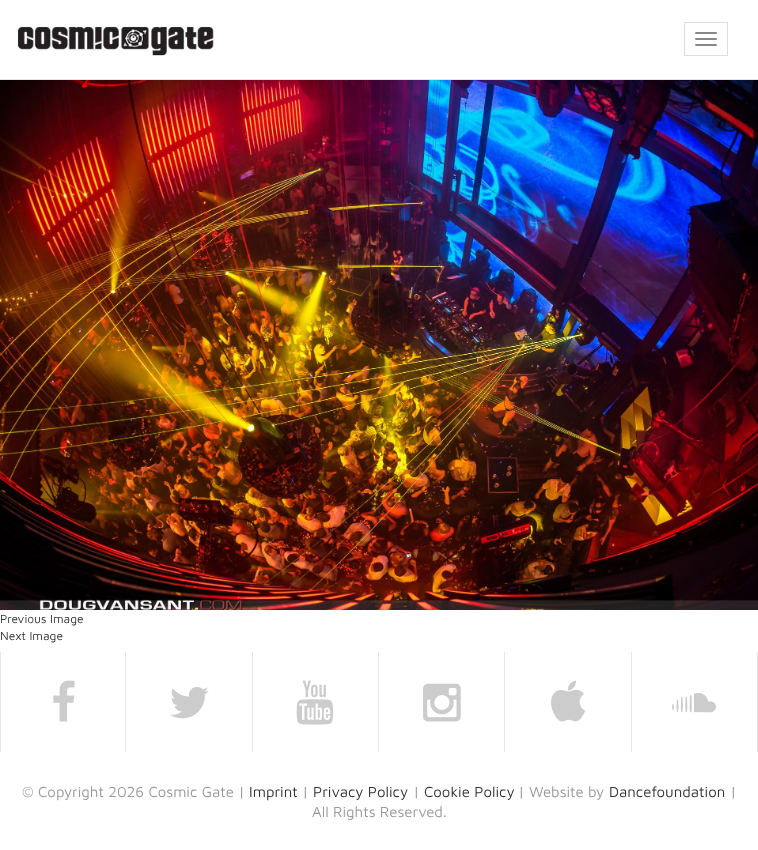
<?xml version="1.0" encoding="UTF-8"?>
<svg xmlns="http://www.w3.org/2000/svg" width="758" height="850">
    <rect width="100%" height="100%" fill="#FFFFFF"/>
    <rect x="0" y="79" width="758" height="1" fill="#E6E6E6"/>
    <image x="17" y="26" width="197" height="30" href="img_01.png"/>
    <rect x="684.5" y="22.5" width="43" height="33" fill="none" stroke="#DDDDDD"/>
    <rect x="695" y="32" width="22" height="2" rx="1" fill="#888888"/>
    <rect x="695" y="38" width="22" height="2" rx="1" fill="#888888"/>
    <rect x="695" y="44" width="22" height="2" rx="1" fill="#888888"/>
    <image x="0" y="80" width="758" height="530" href="img_02.png"/>
    <text font-family="Maven Pro" font-size="12" fill="#333333">
        <tspan x="0" y="623">Previous Image</tspan>
        <tspan x="0" y="640">Next Image</tspan>
    </text>
    <rect x="125" y="652" width="1" height="100" fill="#E6E6E6"/>
    <rect x="0" y="652" width="1" height="100" fill="#E6E6E6"/>
    <image x="53" y="680" width="22" height="42" href="img_03.png"/>
    <rect x="252" y="652" width="1" height="100" fill="#E6E6E6"/>
    <image x="170" y="687" width="39" height="32" href="img_04.png"/>
    <rect x="378" y="652" width="1" height="100" fill="#E6E6E6"/>
    <image x="296" y="680" width="37" height="45" href="img_05.png"/>
    <rect x="504" y="652" width="1" height="100" fill="#E6E6E6"/>
    <image x="423" y="683" width="38" height="39" href="img_06.png"/>
    <rect x="631" y="652" width="1" height="100" fill="#E6E6E6"/>
    <image x="551" y="680" width="34" height="42" href="img_07.png"/>
    <rect x="757" y="652" width="1" height="100" fill="#E6E6E6"/>
    <image x="672" y="693" width="44" height="20" href="img_08.png"/>
    <text x="22" y="797" font-family="Maven Pro" font-size="15" fill="#999999">© Copyright 2026 Cosmic Gate |</text>
    <text x="249" y="797" font-family="Maven Pro" font-size="15" fill="#333333">Imprint</text>
    <text x="302" y="797" font-family="Maven Pro" font-size="15" fill="#999999">|</text>
    <text x="313" y="797" font-family="Maven Pro" font-size="15" fill="#333333">Privacy Policy</text>
    <text x="413" y="797" font-family="Maven Pro" font-size="15" fill="#999999">|</text>
    <text x="424" y="797" font-family="Maven Pro" font-size="15" fill="#333333">Cookie Policy</text>
    <text x="518" y="797" font-family="Maven Pro" font-size="15" fill="#999999">| Website by</text>
    <text x="609" y="797" font-family="Maven Pro" font-size="15" fill="#333333">Dancefoundation</text>
    <text x="730" y="797" font-family="Maven Pro" font-size="15" fill="#999999">|</text>
    <text x="312" y="817" font-family="Maven Pro" font-size="15" fill="#999999">All Rights Reserved.</text>
</svg>
